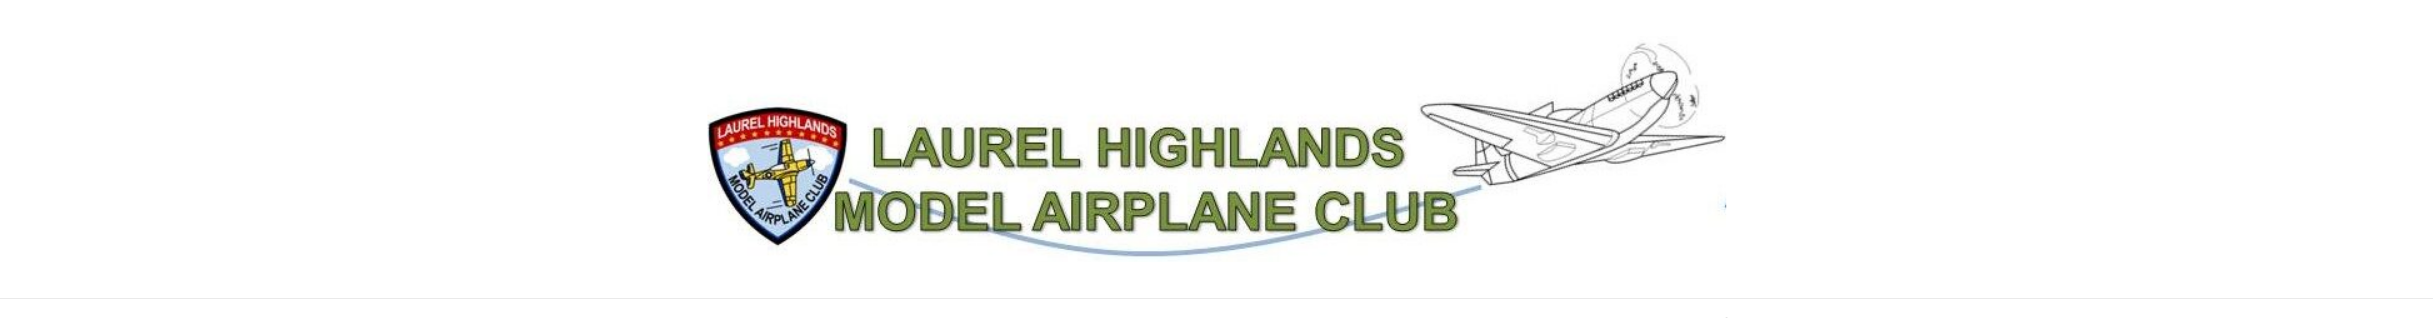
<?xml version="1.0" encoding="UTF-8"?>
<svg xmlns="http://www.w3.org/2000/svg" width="2433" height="318">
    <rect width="100%" height="100%" fill="#FFFFFF"/>
    <image x="707" y="36" width="1020" height="226" href="img_01.png"/>
    <rect x="0" y="298" width="2433" height="1" fill="#EAEAEA"/>
    <image x="1725" y="317" width="3" height="1" href="img_02.png"/>
</svg>
